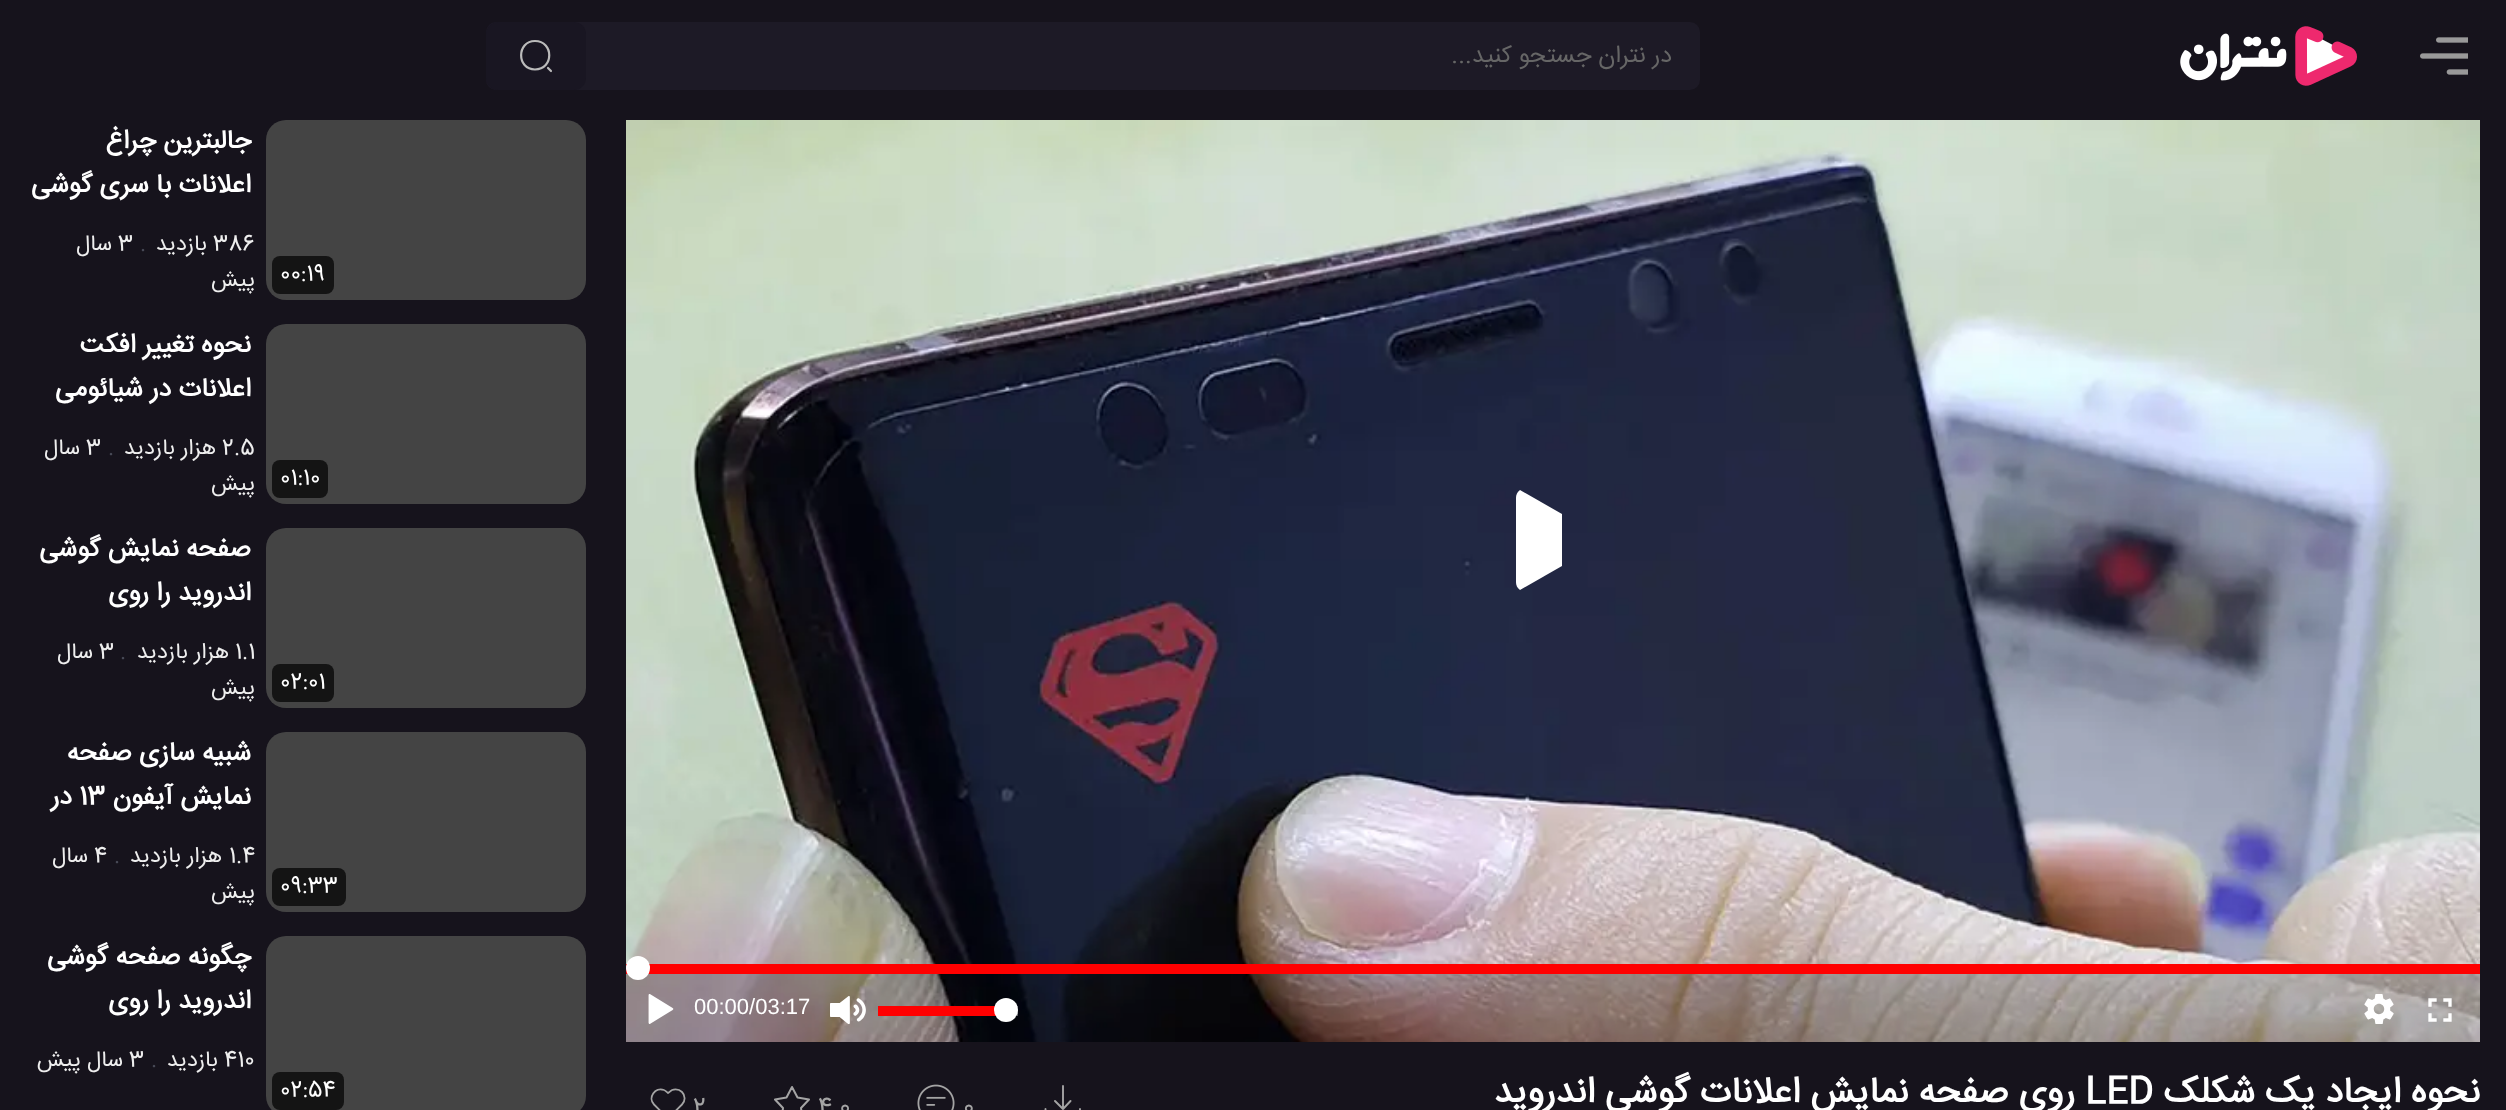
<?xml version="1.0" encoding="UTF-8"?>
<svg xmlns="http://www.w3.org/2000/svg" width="2506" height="1110">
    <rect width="100%" height="100%" fill="#16131C"/>
    <image x="2420" y="37" width="48" height="38" href="img_01.png"/>
    <image x="2180" y="26" width="177" height="60" href="img_02.png"/>
    <rect x="486" y="22" width="1214" height="68" rx="10" fill="#1D1A26"/>
    <text x="1672" y="62" font-family="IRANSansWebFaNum" font-size="24" direction="rtl" fill="#666666">در نتران جستجو کنید...</text>
    <rect x="486" y="22" width="100" height="68" rx="12" fill="#191622"/>
    <path d="M 535 69.5 C 554 69.5 554 41 535 41 C 516.5 41 516.5 69.5 535 69.5 Z M 551 71 L 548 68" fill="none" stroke="#BBBBBB" stroke-width="2.2" stroke-linecap="round" stroke-linejoin="round"/>
    <text x="2480" y="1102" font-family="IRANSansWebFaNum" font-size="36" font-weight="700" direction="rtl" fill="#FFFFFF">نحوه ایجاد یک شکلک</text>
    <text x="2085" y="1102" font-family="IRANSansWebFaNum" font-size="36" font-weight="700" fill="#FFFFFF">LED</text>
    <text x="2075" y="1102" font-family="IRANSansWebFaNum" font-size="36" font-weight="700" direction="rtl" fill="#FFFFFF">روی صفحه نمایش اعلانات گوشی اندروید</text>
    <path d="M 1070.5 1101 L 1063 1109 M 1063 1109 L 1055 1101 M 1063 1109 V 1086 M 1080 1109 C 1080 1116.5 1079.5 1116.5 1072 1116.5 H 1054 C 1046 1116.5 1045.5 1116.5 1045.5 1109" fill="none" stroke="#A4A4A4" stroke-width="1.9" stroke-linecap="round" stroke-linejoin="round"/>
    <text x="963" y="1114" font-family="IRANSansWebFaNum" font-size="24" fill="#A4A4A4">0</text>
    <image x="917" y="1084" width="38" height="26" href="img_03.png"/>
    <text x="818" y="1114" font-family="IRANSansWebFaNum" font-size="24" fill="#A4A4A4">4.0</text>
    <path d="M 792 1087 L 797.5 1097.5 L 809 1099.5 L 801 1108 L 802.5 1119.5 L 792 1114.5 L 781.5 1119.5 L 783 1108 L 775 1099.5 L 786.5 1097.5 Z" fill="none" stroke="#A4A4A4" stroke-width="2" stroke-linecap="round" stroke-linejoin="round"/>
    <text x="693" y="1114" font-family="IRANSansWebFaNum" font-size="24" fill="#A4A4A4">2</text>
    <path d="M 654 1104.5 L 668 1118.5 L 682 1104.5 C 685.5 1101 685.5 1095.5 682 1092 C 678.5 1088.5 672.5 1088.5 669.5 1092 L 668 1093 C 666.5 1092 665.5 1090.5 664 1090 C 655 1086.5 647.5 1098 654 1104.5 Z" fill="none" stroke="#A4A4A4" stroke-width="1.8" stroke-linejoin="round"/>
    <rect x="266" y="120" width="320" height="180" rx="20" fill="#444444"/>
    <text font-family="IRANSansWebFaNum" font-size="26" font-weight="700" direction="rtl" fill="#FFFFFF">
        <tspan x="251" y="148">جالبترین چراغ</tspan>
        <tspan x="251" y="192">اعلانات با سری گوشی</tspan>
    </text>
    <text x="213" y="250" font-family="IRANSansWebFaNum" font-size="22" fill="#EEEEEE">386</text>
    <text x="207" y="250" font-family="IRANSansWebFaNum" font-size="22" direction="rtl" fill="#EEEEEE">بازدید</text>
    <text x="140" y="250" font-family="IRANSansWebFaNum" font-size="22" fill="#484A57">.</text>
    <text x="118" y="250" font-family="IRANSansWebFaNum" font-size="22" fill="#EEEEEE">3</text>
    <text x="112" y="250" font-family="IRANSansWebFaNum" font-size="22" direction="rtl" fill="#EEEEEE">سال</text>
    <rect x="272" y="256" width="62" height="38" rx="8" fill="#141414"/>
    <text x="280" y="280" font-family="IRANSansWebFaNum" font-size="22" fill="#FFFFFF">00:19</text>
    <text x="255" y="286" font-family="IRANSansWebFaNum" font-size="22" direction="rtl" fill="#EEEEEE">پیش</text>
    <rect x="266" y="324" width="320" height="180" rx="20" fill="#444444"/>
    <text font-family="IRANSansWebFaNum" font-size="26" font-weight="700" direction="rtl" fill="#FFFFFF">
        <tspan x="251" y="352">نحوه تغییر افکت</tspan>
        <tspan x="251" y="396">اعلانات در شیائومی</tspan>
    </text>
    <text x="222" y="454" font-family="IRANSansWebFaNum" font-size="22" fill="#EEEEEE">2.5</text>
    <text x="216" y="454" font-family="IRANSansWebFaNum" font-size="22" direction="rtl" fill="#EEEEEE">هزار بازدید</text>
    <text x="108" y="454" font-family="IRANSansWebFaNum" font-size="22" fill="#484A57">.</text>
    <text x="86" y="454" font-family="IRANSansWebFaNum" font-size="22" fill="#EEEEEE">3</text>
    <text x="80" y="454" font-family="IRANSansWebFaNum" font-size="22" direction="rtl" fill="#EEEEEE">سال</text>
    <rect x="272" y="460" width="56" height="38" rx="8" fill="#141414"/>
    <text x="280" y="484" font-family="IRANSansWebFaNum" font-size="22" fill="#FFFFFF">01:10</text>
    <text x="255" y="490" font-family="IRANSansWebFaNum" font-size="22" direction="rtl" fill="#EEEEEE">پیش</text>
    <rect x="266" y="528" width="320" height="180" rx="20" fill="#444444"/>
    <text font-family="IRANSansWebFaNum" font-size="26" font-weight="700" direction="rtl" fill="#FFFFFF">
        <tspan x="251" y="556">صفحه نمایش گوشی</tspan>
        <tspan x="251" y="600">اندروید را روی</tspan>
    </text>
    <text x="235" y="658" font-family="IRANSansWebFaNum" font-size="22" fill="#EEEEEE">1.1</text>
    <text x="229" y="658" font-family="IRANSansWebFaNum" font-size="22" direction="rtl" fill="#EEEEEE">هزار بازدید</text>
    <text x="120" y="658" font-family="IRANSansWebFaNum" font-size="22" fill="#484A57">.</text>
    <text x="99" y="658" font-family="IRANSansWebFaNum" font-size="22" fill="#EEEEEE">3</text>
    <text x="93" y="658" font-family="IRANSansWebFaNum" font-size="22" direction="rtl" fill="#EEEEEE">سال</text>
    <rect x="272" y="664" width="62" height="38" rx="8" fill="#141414"/>
    <text x="280" y="688" font-family="IRANSansWebFaNum" font-size="22" fill="#FFFFFF">02:01</text>
    <text x="255" y="694" font-family="IRANSansWebFaNum" font-size="22" direction="rtl" fill="#EEEEEE">پیش</text>
    <rect x="266" y="732" width="320" height="180" rx="20" fill="#444444"/>
    <text font-family="IRANSansWebFaNum" font-size="26" font-weight="700" direction="rtl" fill="#FFFFFF">
        <tspan x="251" y="760">شبیه سازی صفحه</tspan>
        <tspan x="251" y="804">نمایش آیفون</tspan>
    </text>
    <text x="79" y="804" font-family="IRANSansWebFaNum" font-size="26" font-weight="700" fill="#FFFFFF">13</text>
    <text x="72" y="804" font-family="IRANSansWebFaNum" font-size="26" font-weight="700" direction="rtl" fill="#FFFFFF">در</text>
    <text x="229" y="862" font-family="IRANSansWebFaNum" font-size="22" fill="#EEEEEE">1.4</text>
    <text x="222" y="862" font-family="IRANSansWebFaNum" font-size="22" direction="rtl" fill="#EEEEEE">هزار بازدید</text>
    <text x="114" y="862" font-family="IRANSansWebFaNum" font-size="22" fill="#484A57">.</text>
    <text x="94" y="862" font-family="IRANSansWebFaNum" font-size="22" fill="#EEEEEE">4</text>
    <text x="88" y="862" font-family="IRANSansWebFaNum" font-size="22" direction="rtl" fill="#EEEEEE">سال</text>
    <rect x="272" y="868" width="74" height="38" rx="8" fill="#141414"/>
    <text x="280" y="892" font-family="IRANSansWebFaNum" font-size="22" fill="#FFFFFF">09:33</text>
    <text x="255" y="898" font-family="IRANSansWebFaNum" font-size="22" direction="rtl" fill="#EEEEEE">پیش</text>
    <rect x="266" y="936" width="320" height="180" rx="20" fill="#444444"/>
    <text font-family="IRANSansWebFaNum" font-size="26" font-weight="700" direction="rtl" fill="#FFFFFF">
        <tspan x="251" y="964">چگونه صفحه گوشی</tspan>
        <tspan x="251" y="1008">اندروید را روی</tspan>
    </text>
    <text x="224" y="1066" font-family="IRANSansWebFaNum" font-size="22" fill="#EEEEEE">410</text>
    <text x="218" y="1066" font-family="IRANSansWebFaNum" font-size="22" direction="rtl" fill="#EEEEEE">بازدید</text>
    <text x="151" y="1066" font-family="IRANSansWebFaNum" font-size="22" fill="#484A57">.</text>
    <text x="129" y="1066" font-family="IRANSansWebFaNum" font-size="22" fill="#EEEEEE">3</text>
    <text x="123" y="1066" font-family="IRANSansWebFaNum" font-size="22" direction="rtl" fill="#EEEEEE">سال پیش</text>
    <rect x="272" y="1072" width="72" height="38" rx="8" fill="#141414"/>
    <text x="280" y="1096" font-family="IRANSansWebFaNum" font-size="22" fill="#FFFFFF">02:54</text>
    <image x="626" y="120" width="1854" height="922" href="img_04.png"/>
    <path d="M 1516 498 V 582 C 1516 585 1517 588 1520 590 L 1562 566 V 514 L 1520 490 C 1517 492 1516 495 1516 498 Z" fill="#FFFFFF"/>
    <rect x="626" y="974" width="1854" height="68" fill="#000000" fill-opacity="0.2"/>
    <rect x="626" y="964" width="1854" height="10" fill="#FF0000"/>
    <circle cx="638" cy="968" r="12" fill="#FFFFFF"/>
    <image x="2428" y="998" width="24" height="24" href="img_05.png"/>
    <image x="2364" y="994" width="30" height="30" href="img_06.png"/>
    <rect x="1016" y="1006" width="2" height="10" fill="#FFFFFF" fill-opacity="0.35"/>
    <rect x="878" y="1006" width="118" height="10" fill="#FF0000"/>
    <circle cx="1006" cy="1010" r="12" fill="#FFFFFF"/>
    <image x="830" y="996" width="36" height="28" href="img_07.png"/>
    <text x="694" y="1014" font-family="Liberation Sans" font-size="22" fill="#FFFFFF">00:00/03:17</text>
    <image x="648" y="994" width="26" height="30" href="img_08.png"/>
</svg>
